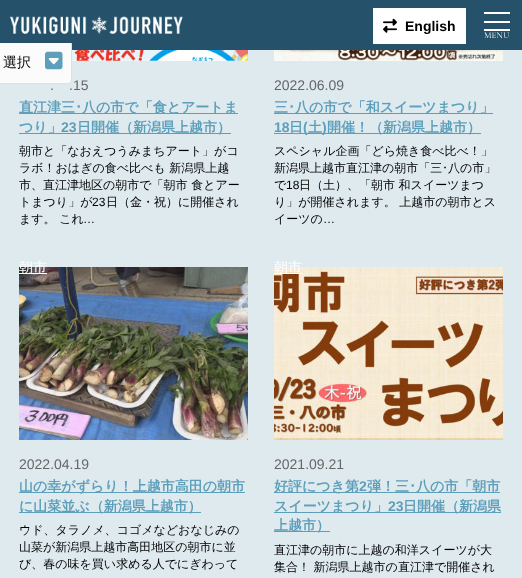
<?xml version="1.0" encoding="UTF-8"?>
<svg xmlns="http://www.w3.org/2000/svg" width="522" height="578">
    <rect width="100%" height="100%" fill="#DFEAEE"/>
    <rect x="0" y="0" width="522" height="50" fill="#25526A"/>
    <text x="69" y="90" font-family="Liberation Sans" font-size="14" fill="#666666">.15</text>
    <rect x="-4.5" y="40.5" width="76" height="43" rx="3.5" fill="#FBFBFB" stroke="#DCE0E0"/>
    <image x="0" y="16" width="183" height="27" href="img_01.png"/>
    <rect x="373" y="8" width="93" height="36" fill="#FFFFFF"/>
    <image x="383" y="18" width="14" height="15" href="img_02.png"/>
    <text x="405" y="31" font-family="Liberation Sans" font-size="14" font-weight="700" fill="#000000">English</text>
    <rect x="484" y="21" width="26" height="2" fill="#FFFFFF"/>
    <rect x="484" y="12" width="26" height="2" fill="#FFFFFF"/>
    <rect x="484" y="29" width="26" height="2" fill="#FFFFFF"/>
    <text x="484" y="38" font-family="Cormorant Garamond" font-size="9" fill="#FFFFFF">MENU</text>
    <text x="3" y="67" font-family="WenQuanYi Zen Hei" font-size="14" font-weight="500" fill="#000000">選択</text>
    <image x="45" y="51" width="18" height="19" href="img_03.png"/>
    <image x="72" y="50" width="176" height="11" href="img_04.png"/>
    <text x="50" y="90" font-family="Liberation Sans" font-size="14" fill="#666666">.</text>
    <rect x="19" y="113" width="219" height="1" fill="#5D9FBB"/>
    <text x="19" y="112" font-family="WenQuanYi Zen Hei" font-size="14" font-weight="700" fill="#5D9FBB">直江津三</text>
    <text x="75" y="112" font-family="IPAPGothic" font-size="14" font-weight="700" fill="#5D9FBB">･</text>
    <text x="82" y="112" font-family="WenQuanYi Zen Hei" font-size="14" font-weight="700" fill="#5D9FBB">八の市で「食とアートま</text>
    <rect x="19" y="133" width="212" height="1" fill="#5D9FBB"/>
    <text x="19" y="132" font-family="WenQuanYi Zen Hei" font-size="14" font-weight="700" fill="#5D9FBB">つり」</text>
    <text x="61" y="132" font-family="Liberation Sans" font-size="14" font-weight="700" fill="#5D9FBB">23</text>
    <text x="77" y="132" font-family="WenQuanYi Zen Hei" font-size="14" font-weight="700" fill="#5D9FBB">日開催（新潟県上越市）</text>
    <text font-family="WenQuanYi Zen Hei" font-size="12" font-weight="500" fill="#000000">
        <tspan x="19" y="155">朝市と「なおえつうみまちアート」がコ</tspan>
        <tspan x="19" y="172">ラボ！おはぎの食べ比べも 新潟県上越</tspan>
        <tspan x="19" y="189">市、直江津地区の朝市で「朝市 食とアー</tspan>
        <tspan x="19" y="206">トまつり」が</tspan>
    </text>
    <text x="92" y="206" font-family="Liberation Sans" font-size="12" fill="#000000">23</text>
    <text x="106" y="206" font-family="WenQuanYi Zen Hei" font-size="12" font-weight="500" fill="#000000">日（金・祝）に開催され</text>
    <text x="19" y="223" font-family="WenQuanYi Zen Hei" font-size="12" font-weight="500" fill="#000000">ます。 これ</text>
    <text x="83" y="223" font-family="Liberation Sans" font-size="12" fill="#000000">…</text>
    <image x="274" y="50" width="229" height="11" href="img_05.png"/>
    <text x="274" y="90" font-family="Liberation Sans" font-size="14" fill="#666666">2022.06.09</text>
    <text x="274" y="112" font-family="WenQuanYi Zen Hei" font-size="14" font-weight="700" fill="#5D9FBB">三</text>
    <text x="288" y="112" font-family="IPAPGothic" font-size="14" font-weight="700" fill="#5D9FBB">･</text>
    <rect x="274" y="113" width="219" height="1" fill="#5D9FBB"/>
    <text x="295" y="112" font-family="WenQuanYi Zen Hei" font-size="14" font-weight="700" fill="#5D9FBB">八の市で「和スイーツまつり」</text>
    <text x="274" y="132" font-family="Liberation Sans" font-size="14" font-weight="700" fill="#5D9FBB">18</text>
    <rect x="274" y="133" width="207" height="1" fill="#5D9FBB"/>
    <text x="289" y="132" font-family="WenQuanYi Zen Hei" font-size="14" font-weight="700" fill="#5D9FBB">日</text>
    <text x="303" y="132" font-family="Liberation Sans" font-size="14" font-weight="700" fill="#5D9FBB">(</text>
    <text x="308" y="132" font-family="WenQuanYi Zen Hei" font-size="14" font-weight="700" fill="#5D9FBB">土</text>
    <text x="322" y="132" font-family="Liberation Sans" font-size="14" font-weight="700" fill="#5D9FBB">)</text>
    <text x="327" y="132" font-family="WenQuanYi Zen Hei" font-size="14" font-weight="700" fill="#5D9FBB">開催！（新潟県上越市）</text>
    <text font-family="WenQuanYi Zen Hei" font-size="12" font-weight="500" fill="#000000">
        <tspan x="274" y="155">スペシャル企画「どら焼き食べ比べ！」</tspan>
        <tspan x="274" y="172">新潟県上越市直江津の朝市「三</tspan>
    </text>
    <text x="442" y="172" font-family="IPAPGothic" font-size="12" fill="#000000">･</text>
    <text x="448" y="172" font-family="WenQuanYi Zen Hei" font-size="12" font-weight="500" fill="#000000">八の市」</text>
    <text x="274" y="189" font-family="WenQuanYi Zen Hei" font-size="12" font-weight="500" fill="#000000">で</text>
    <text x="286" y="189" font-family="Liberation Sans" font-size="12" fill="#000000">18</text>
    <text x="299" y="189" font-family="WenQuanYi Zen Hei" font-size="12" font-weight="500" fill="#000000">日（土）、「朝市 和スイーツまつ</text>
    <text font-family="WenQuanYi Zen Hei" font-size="12" font-weight="500" fill="#000000">
        <tspan x="274" y="206">り」が開催されます。 上越市の朝市とス</tspan>
        <tspan x="274" y="223">イーツの</tspan>
    </text>
    <text x="323" y="223" font-family="Liberation Sans" font-size="12" fill="#000000">…</text>
    <image x="19" y="267" width="229" height="173" href="img_06.png"/>
    <rect x="19" y="273" width="28" height="1" fill="#FFFFFF"/>
    <text x="19" y="272" font-family="WenQuanYi Zen Hei" font-size="14" font-weight="500" fill="#FFFFFF">朝市</text>
    <text x="19" y="469" font-family="Liberation Sans" font-size="14" fill="#666666">2022.04.19</text>
    <rect x="19" y="492" width="226" height="1" fill="#5D9FBB"/>
    <text x="19" y="491" font-family="WenQuanYi Zen Hei" font-size="14" font-weight="700" fill="#5D9FBB">山の幸がずらり！上越市高田の朝市</text>
    <rect x="19" y="512" width="182" height="1" fill="#5D9FBB"/>
    <text x="19" y="511" font-family="WenQuanYi Zen Hei" font-size="14" font-weight="700" fill="#5D9FBB">に山菜並ぶ（新潟県上越市）</text>
    <text font-family="WenQuanYi Zen Hei" font-size="12" font-weight="500" fill="#000000">
        <tspan x="19" y="534">ウド、タラノメ、コゴメなどおなじみの</tspan>
        <tspan x="19" y="551">山菜が新潟県上越市高田地区の朝市に並</tspan>
        <tspan x="19" y="568">び、春の味を買い求める人でにぎわって</tspan>
    </text>
    <image x="274" y="267" width="229" height="173" href="img_07.png"/>
    <rect x="274" y="273" width="28" height="1" fill="#FFFFFF"/>
    <text x="274" y="272" font-family="WenQuanYi Zen Hei" font-size="14" font-weight="500" fill="#FFFFFF">朝市</text>
    <text x="274" y="469" font-family="Liberation Sans" font-size="14" fill="#666666">2021.09.21</text>
    <rect x="274" y="492" width="226" height="1" fill="#5D9FBB"/>
    <text x="274" y="491" font-family="WenQuanYi Zen Hei" font-size="14" font-weight="700" fill="#5D9FBB">好評につき第</text>
    <text x="359" y="491" font-family="Liberation Sans" font-size="14" font-weight="700" fill="#5D9FBB">2</text>
    <text x="367" y="491" font-family="WenQuanYi Zen Hei" font-size="14" font-weight="700" fill="#5D9FBB">弾！三</text>
    <text x="409" y="491" font-family="IPAPGothic" font-size="14" font-weight="700" fill="#5D9FBB">･</text>
    <text x="416" y="491" font-family="WenQuanYi Zen Hei" font-size="14" font-weight="700" fill="#5D9FBB">八の市「朝市</text>
    <rect x="274" y="512" width="227" height="1" fill="#5D9FBB"/>
    <text x="274" y="511" font-family="WenQuanYi Zen Hei" font-size="14" font-weight="700" fill="#5D9FBB">スイーツまつり」</text>
    <text x="388" y="511" font-family="Liberation Sans" font-size="14" font-weight="700" fill="#5D9FBB">23</text>
    <text x="403" y="511" font-family="WenQuanYi Zen Hei" font-size="14" font-weight="700" fill="#5D9FBB">日開催（新潟県</text>
    <rect x="274" y="531" width="56" height="1" fill="#5D9FBB"/>
    <text x="274" y="530" font-family="WenQuanYi Zen Hei" font-size="14" font-weight="700" fill="#5D9FBB">上越市）</text>
    <text font-family="WenQuanYi Zen Hei" font-size="12" font-weight="500" fill="#000000">
        <tspan x="274" y="554">直江津の朝市に上越の和洋スイーツが大</tspan>
        <tspan x="274" y="571">集合！ 新潟県上越市の直江津で開催され</tspan>
    </text>
</svg>
